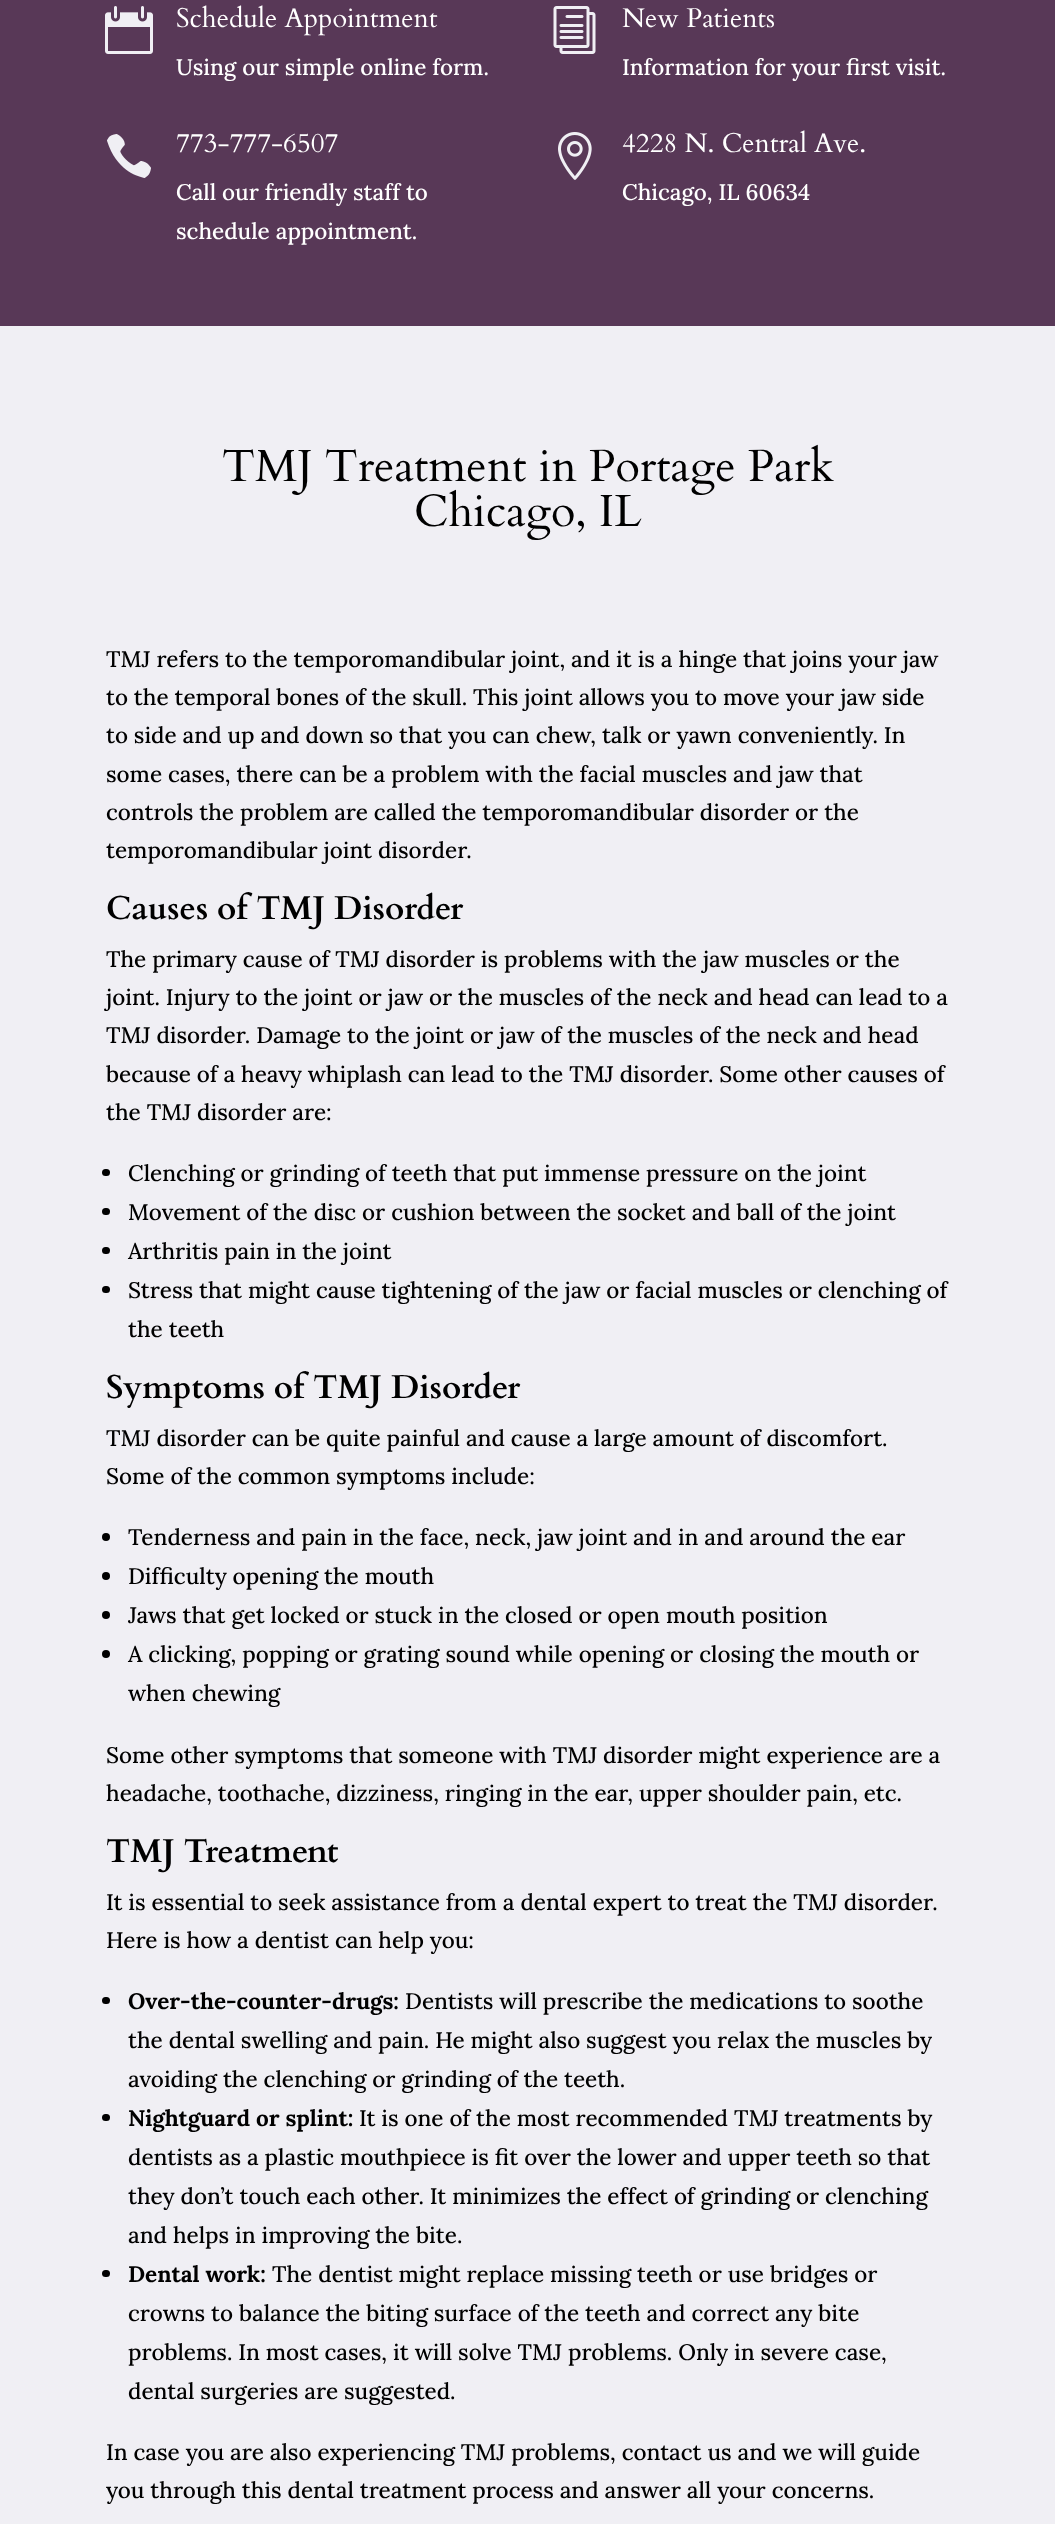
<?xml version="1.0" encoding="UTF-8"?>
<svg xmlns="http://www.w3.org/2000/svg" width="1055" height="2524">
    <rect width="100%" height="100%" fill="#583857"/>
    <image x="105" y="6" width="48" height="48" href="img_01.png"/>
    <text x="176" y="27" font-family="Cardo" font-size="27" fill="#FFFFFF">Schedule Appointment</text>
    <text x="176" y="75" font-family="Lora" font-size="22.5" font-weight="500" fill="#FFFFFF">Using our simple online form.</text>
    <image x="553" y="6" width="43" height="48" href="img_02.png"/>
    <text x="622" y="27" font-family="Cardo" font-size="27" fill="#FFFFFF">New Patients</text>
    <text x="622" y="75" font-family="Lora" font-size="22.5" font-weight="500" fill="#FFFFFF">Information for your first visit.</text>
    <image x="107" y="134" width="44" height="44" href="img_03.png"/>
    <text x="176" y="152" font-family="Cardo" font-size="27" fill="#FFFFFF">773-777-6507</text>
    <text font-family="Lora" font-size="22.5" font-weight="500" fill="#FFFFFF">
        <tspan x="176" y="200">Call our friendly staff to</tspan>
        <tspan x="176" y="239">schedule appointment.</tspan>
    </text>
    <image x="558" y="132" width="34" height="48" href="img_04.png"/>
    <text x="622" y="152" font-family="Cardo" font-size="27" fill="#FFFFFF">4228 N. Central Ave.</text>
    <text x="622" y="200" font-family="Lora" font-size="22.5" font-weight="500" fill="#FFFFFF">Chicago, IL 60634</text>
    <rect x="0" y="326" width="1055" height="2198" fill="#F0EFF4"/>
    <text x="222" y="481" font-family="Cardo" font-size="45" fill="#000000">TMJ Treatment in Portage Park</text>
    <text x="414" y="526" font-family="Cardo" font-size="45" fill="#000000">Chicago, IL</text>
    <text font-family="Lora" font-size="22.5" font-weight="500" fill="#000000">
        <tspan x="106" y="667">TMJ refers to the temporomandibular joint, and it is a hinge that joins your jaw</tspan>
        <tspan x="106" y="705">to the temporal bones of the skull. This joint allows you to move your jaw side</tspan>
        <tspan x="106" y="743">to side and up and down so that you can chew, talk or yawn conveniently. In</tspan>
        <tspan x="106" y="782">some cases, there can be a problem with the facial muscles and jaw that</tspan>
        <tspan x="106" y="820">controls the problem are called the temporomandibular disorder or the</tspan>
        <tspan x="106" y="858">temporomandibular joint disorder.</tspan>
    </text>
    <text x="106" y="919" font-family="Cardo" font-size="33" font-weight="700" fill="#000000">Causes of TMJ Disorder</text>
    <text font-family="Lora" font-size="22.5" font-weight="500" fill="#000000">
        <tspan x="106" y="967">The primary cause of TMJ disorder is problems with the jaw muscles or the</tspan>
        <tspan x="106" y="1005">joint. Injury to the joint or jaw or the muscles of the neck and head can lead to a</tspan>
        <tspan x="106" y="1043">TMJ disorder. Damage to the joint or jaw of the muscles of the neck and head</tspan>
        <tspan x="106" y="1082">because of a heavy whiplash can lead to the TMJ disorder. Some other causes of</tspan>
        <tspan x="106" y="1120">the TMJ disorder are:</tspan>
    </text>
    <rect x="102" y="1169" width="8" height="7" rx="3.5" fill="#000000"/>
    <text x="128" y="1181" font-family="Lora" font-size="22.5" font-weight="500" fill="#000000">Clenching or grinding of teeth that put immense pressure on the joint</text>
    <rect x="102" y="1208" width="8" height="7" rx="3.5" fill="#000000"/>
    <text x="128" y="1220" font-family="Lora" font-size="22.5" font-weight="500" fill="#000000">Movement of the disc or cushion between the socket and ball of the joint</text>
    <rect x="102" y="1247" width="8" height="7" rx="3.5" fill="#000000"/>
    <text x="128" y="1259" font-family="Lora" font-size="22.5" font-weight="500" fill="#000000">Arthritis pain in the joint</text>
    <rect x="102" y="1286" width="8" height="7" rx="3.5" fill="#000000"/>
    <text font-family="Lora" font-size="22.5" font-weight="500" fill="#000000">
        <tspan x="128" y="1298">Stress that might cause tightening of the jaw or facial muscles or clenching of</tspan>
        <tspan x="128" y="1337">the teeth</tspan>
    </text>
    <text x="106" y="1398" font-family="Cardo" font-size="33" font-weight="700" fill="#000000">Symptoms of TMJ Disorder</text>
    <text font-family="Lora" font-size="22.5" font-weight="500" fill="#000000">
        <tspan x="106" y="1446">TMJ disorder can be quite painful and cause a large amount of discomfort.</tspan>
        <tspan x="106" y="1484">Some of the common symptoms include:</tspan>
    </text>
    <circle cx="106" cy="1537" r="4" fill="#000000"/>
    <text x="128" y="1545" font-family="Lora" font-size="22.5" font-weight="500" fill="#000000">Tenderness and pain in the face, neck, jaw joint and in and around the ear</text>
    <circle cx="106" cy="1576" r="4" fill="#000000"/>
    <text x="128" y="1584" font-family="Lora" font-size="22.5" font-weight="500" fill="#000000">Difficulty opening the mouth</text>
    <circle cx="106" cy="1615" r="4" fill="#000000"/>
    <text x="128" y="1623" font-family="Lora" font-size="22.5" font-weight="500" fill="#000000">Jaws that get locked or stuck in the closed or open mouth position</text>
    <circle cx="106" cy="1654" r="4" fill="#000000"/>
    <text font-family="Lora" font-size="22.5" font-weight="500" fill="#000000">
        <tspan x="128" y="1662">A clicking, popping or grating sound while opening or closing the mouth or</tspan>
        <tspan x="128" y="1701">when chewing</tspan>
    </text>
    <text font-family="Lora" font-size="22.5" font-weight="500" fill="#000000">
        <tspan x="106" y="1763">Some other symptoms that someone with TMJ disorder might experience are a</tspan>
        <tspan x="106" y="1801">headache, toothache, dizziness, ringing in the ear, upper shoulder pain, etc.</tspan>
    </text>
    <text x="106" y="1862" font-family="Cardo" font-size="33" font-weight="700" fill="#000000">TMJ Treatment</text>
    <text font-family="Lora" font-size="22.5" font-weight="500" fill="#000000">
        <tspan x="106" y="1910">It is essential to seek assistance from a dental expert to treat the TMJ disorder.</tspan>
        <tspan x="106" y="1948">Here is how a dentist can help you:</tspan>
    </text>
    <rect x="102" y="1997" width="8" height="7" rx="3.5" fill="#000000"/>
    <text x="128" y="2009" font-family="Lora" font-size="22.5" font-weight="700" fill="#000000">Over-the-counter-drugs:</text>
    <text x="405" y="2009" font-family="Lora" font-size="22.5" font-weight="500" fill="#000000">Dentists will prescribe the medications to soothe</text>
    <text font-family="Lora" font-size="22.5" font-weight="500" fill="#000000">
        <tspan x="128" y="2048">the dental swelling and pain. He might also suggest you relax the muscles by</tspan>
        <tspan x="128" y="2087">avoiding the clenching or grinding of the teeth.</tspan>
    </text>
    <rect x="102" y="2114" width="8" height="7" rx="3.5" fill="#000000"/>
    <text x="128" y="2126" font-family="Lora" font-size="22.5" font-weight="700" fill="#000000">Nightguard or splint:</text>
    <text x="359" y="2126" font-family="Lora" font-size="22.5" font-weight="500" fill="#000000">It is one of the most recommended TMJ treatments by</text>
    <text font-family="Lora" font-size="22.5" font-weight="500" fill="#000000">
        <tspan x="128" y="2165">dentists as a plastic mouthpiece is fit over the lower and upper teeth so that</tspan>
        <tspan x="128" y="2204">they don’t touch each other. It minimizes the effect of grinding or clenching</tspan>
        <tspan x="128" y="2243">and helps in improving the bite.</tspan>
    </text>
    <rect x="102" y="2270" width="8" height="7" rx="3.5" fill="#000000"/>
    <text x="128" y="2282" font-family="Lora" font-size="22.5" font-weight="700" fill="#000000">Dental work:</text>
    <text x="272" y="2282" font-family="Lora" font-size="22.5" font-weight="500" fill="#000000">The dentist might replace missing teeth or use bridges or</text>
    <text font-family="Lora" font-size="22.5" font-weight="500" fill="#000000">
        <tspan x="128" y="2321">crowns to balance the biting surface of the teeth and correct any bite</tspan>
        <tspan x="128" y="2360">problems. In most cases, it will solve TMJ problems. Only in severe case,</tspan>
        <tspan x="128" y="2399">dental surgeries are suggested.</tspan>
    </text>
    <text font-family="Lora" font-size="22.5" font-weight="500" fill="#000000">
        <tspan x="106" y="2460">In case you are also experiencing TMJ problems, contact us and we will guide</tspan>
        <tspan x="106" y="2498">you through this dental treatment process and answer all your concerns.</tspan>
    </text>
</svg>
